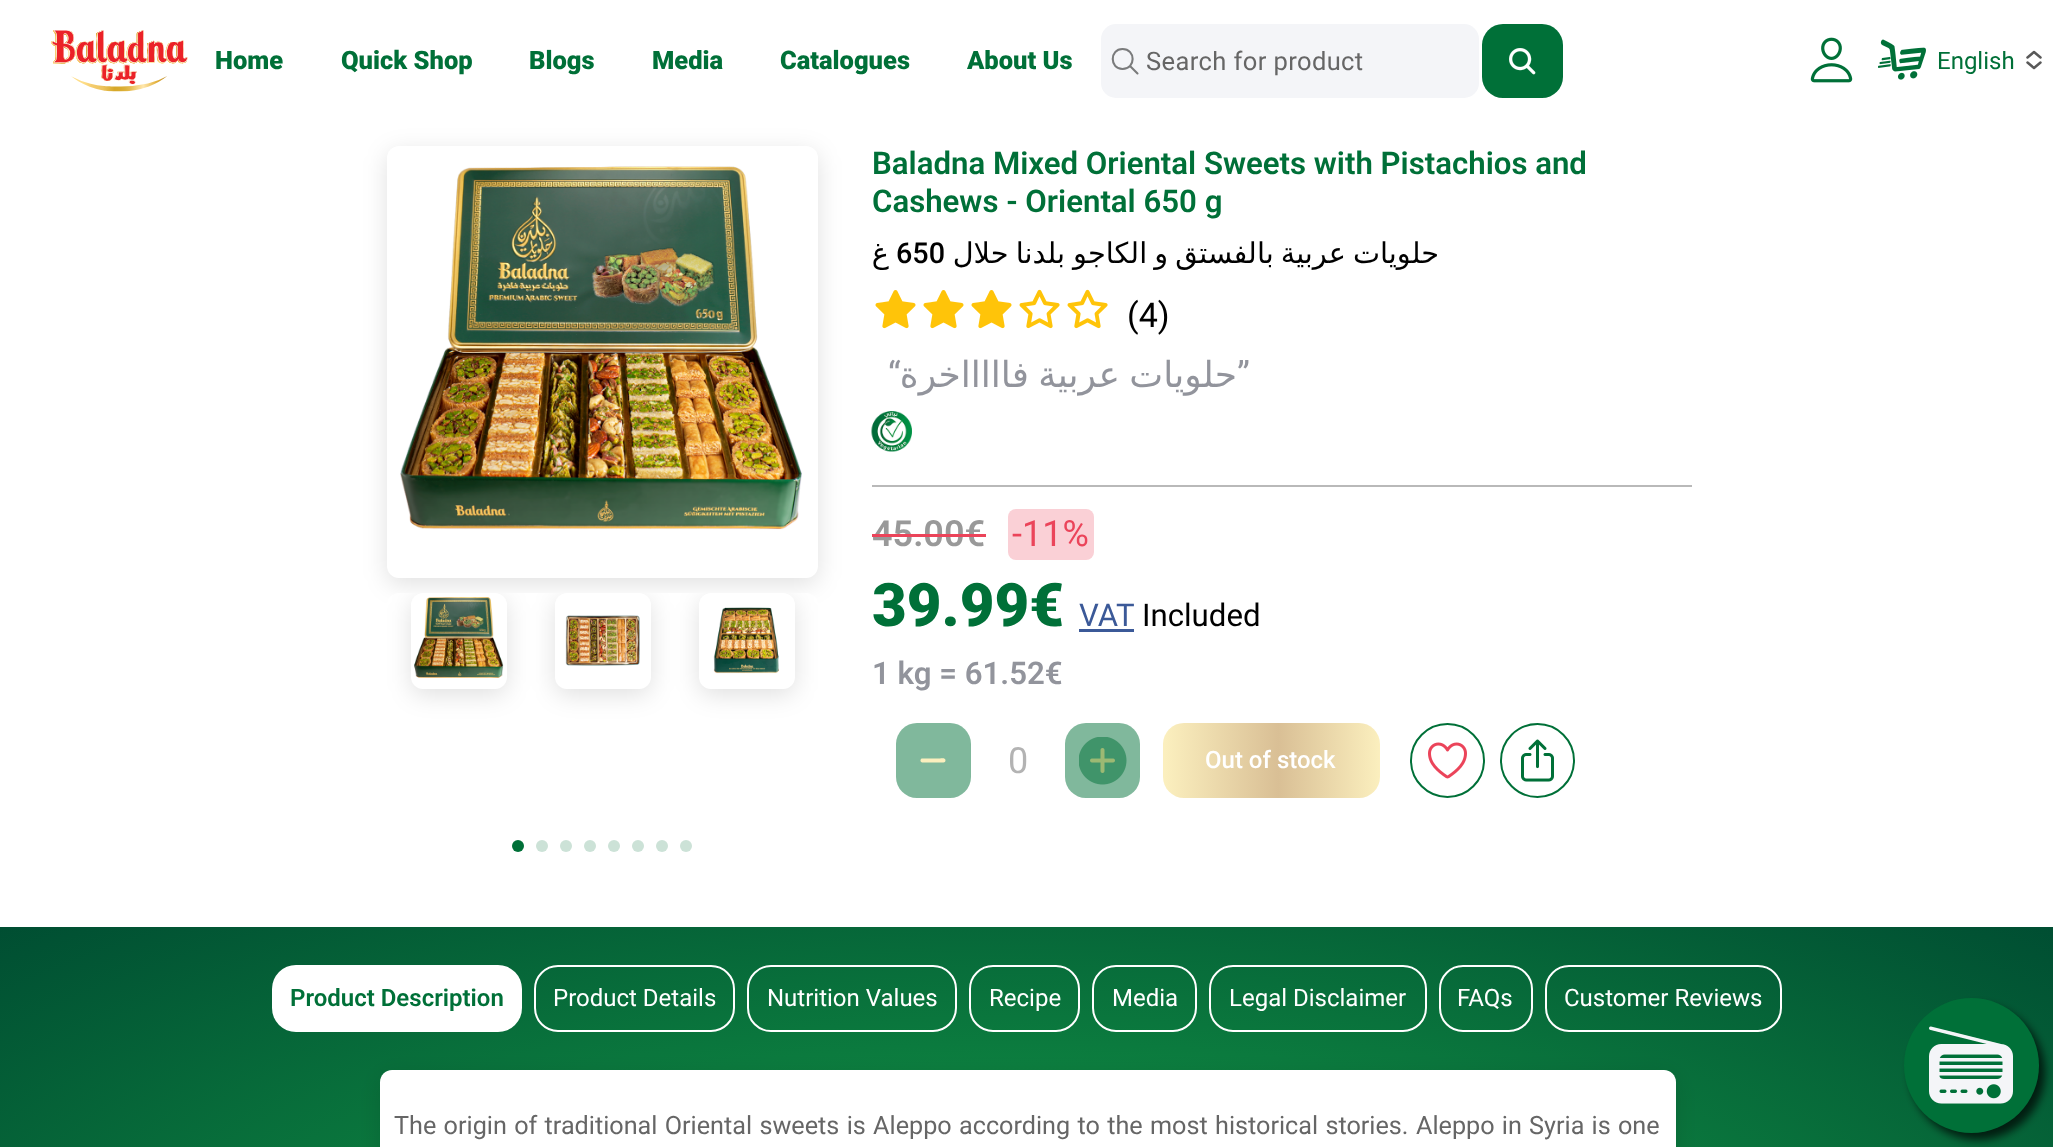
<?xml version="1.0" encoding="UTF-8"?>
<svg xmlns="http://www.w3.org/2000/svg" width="2053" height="1147">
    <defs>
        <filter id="blur1" x="-50%" y="-200%" width="200%" height="500%"><feGaussianBlur stdDeviation="12"/></filter>
        <clipPath id="clip1"><rect x="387" y="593" width="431" height="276" rx="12"/></clipPath>
        <linearGradient id="g1" gradientUnits="userSpaceOnUse" x1="1163" y1="761" x2="1380" y2="761"><stop offset="0.01" stop-color="#FBEFBE"/><stop offset="0.53" stop-color="#D9BF95"/><stop offset="1" stop-color="#FBEFBE"/></linearGradient>
        <radialGradient id="g2" gradientUnits="userSpaceOnUse" cx="0" cy="0" r="1" gradientTransform="matrix(1452 0 0 554 1027 1319)"><stop offset="0" stop-color="#16A64A"/><stop offset="1" stop-color="#004E32"/></radialGradient>
        <filter id="blur2" x="-50%" y="-200%" width="200%" height="500%"><feGaussianBlur stdDeviation="4.5"/></filter>
    </defs>
    <rect width="100%" height="100%" fill="#FFFFFF"/>
    <image x="51" y="30" width="137" height="62" href="img_01.png"/>
    <text x="215" y="69" font-family="Roboto" font-size="25.5" font-weight="900" fill="#007038">Home</text>
    <text x="341" y="69" font-family="Roboto" font-size="25.5" font-weight="900" fill="#007038">Quick Shop</text>
    <text x="529" y="69" font-family="Roboto" font-size="25.5" font-weight="900" fill="#007038">Blogs</text>
    <text x="652" y="69" font-family="Roboto" font-size="25.5" font-weight="900" fill="#007038">Media</text>
    <text x="780" y="69" font-family="Roboto" font-size="25.5" font-weight="900" fill="#007038">Catalogues</text>
    <text x="967" y="69" font-family="Roboto" font-size="25.5" font-weight="900" fill="#007038">About Us</text>
    <rect x="1101" y="24" width="378" height="74" rx="15" fill="#F4F5F8"/>
    <path d="M 1122.5 49 C 1109.5 49 1109.5 69 1122.5 69 C 1136 69 1136 49 1122.5 49 Z" fill="none" stroke="#7A7B7C" stroke-width="2.1"/>
    <path d="M 1130.5 66.5 L 1137.5 73.5" fill="none" stroke="#7A7B7C" stroke-width="2.1" stroke-linecap="round"/>
    <text x="1146" y="70" font-family="Roboto" font-size="25.5" letter-spacing="0.4" fill="#666666">Search for product</text>
    <rect x="1482" y="24" width="81" height="74" rx="21" fill="#007038"/>
    <image x="1509" y="48" width="27" height="27" href="img_02.png"/>
    <image x="1810" y="37" width="43" height="46" href="img_03.png"/>
    <image x="1878" y="39" width="48" height="41" href="img_04.png"/>
    <text x="1937" y="69" font-family="Roboto" font-size="24" fill="#007038">English</text>
    <path d="M 2027.5 57.5 L 2034 52 L 2040.5 57.5 M 2027.5 62.5 L 2034 68 L 2040.5 62.5" fill="none" stroke="#595959" stroke-width="2.5" stroke-linecap="round" stroke-linejoin="round"/>
    <rect x="387" y="152" width="431" height="432" rx="12" fill="#000000" fill-opacity="0.12" filter="url(#blur1)"/>
    <rect x="387" y="146" width="431" height="432" rx="12" fill="#FFFFFF"/>
    <image x="400" y="166" width="402" height="364" href="img_05.png"/>
    <rect x="387" y="593" width="431" height="276" rx="12" fill="#FFFFFF"/>
    <g clip-path="url(#clip1)">
        <rect x="411" y="599" width="96" height="96" rx="12" fill="#000000" fill-opacity="0.12" filter="url(#blur1)"/>
    </g>
    <rect x="411" y="593" width="96" height="96" rx="12" fill="#FFFFFF"/>
    <image x="414" y="597" width="90" height="81" href="img_06.png"/>
    <g clip-path="url(#clip1)">
        <rect x="555" y="599" width="96" height="96" rx="12" fill="#000000" fill-opacity="0.12" filter="url(#blur1)"/>
    </g>
    <rect x="555" y="593" width="96" height="96" rx="12" fill="#FFFFFF"/>
    <image x="565" y="615" width="75" height="51" href="img_07.png"/>
    <g clip-path="url(#clip1)">
        <rect x="699" y="599" width="96" height="96" rx="12" fill="#000000" fill-opacity="0.12" filter="url(#blur1)"/>
    </g>
    <rect x="699" y="593" width="96" height="96" rx="12" fill="#FFFFFF"/>
    <image x="713" y="607" width="66" height="67" href="img_08.png"/>
    <circle cx="518" cy="846" r="6" fill="#007038"/>
    <circle cx="542" cy="846" r="6" fill="#CCE2D7"/>
    <circle cx="566" cy="846" r="6" fill="#CCE2D7"/>
    <circle cx="590" cy="846" r="6" fill="#CCE2D7"/>
    <circle cx="614" cy="846" r="6" fill="#CCE2D7"/>
    <circle cx="638" cy="846" r="6" fill="#CCE2D7"/>
    <circle cx="662" cy="846" r="6" fill="#CCE2D7"/>
    <circle cx="686" cy="846" r="6" fill="#CCE2D7"/>
    <text font-family="Roboto" font-size="31.2" font-weight="600" fill="#007038">
        <tspan x="872" y="174">Baladna Mixed Oriental Sweets with Pistachios and</tspan>
        <tspan x="872" y="212">Cashews - Oriental 650 g</tspan>
    </text>
    <text x="889" y="263" font-family="DejaVu Sans" font-size="28.75" direction="rtl" fill="#000000">غ</text>
    <text x="896" y="263" font-family="Roboto" font-size="28.75" font-weight="500" fill="#000000">650</text>
    <text x="1065" y="263" word-spacing="-2" font-family="DejaVu Sans" font-size="28.75" direction="rtl" fill="#000000">بلدنا حلال</text>
    <text x="1439" y="263" word-spacing="-2" font-family="DejaVu Sans" font-size="28.75" direction="rtl" fill="#000000">حلويات عربية بالفستق و الكاجو</text>
    <image x="875" y="290" width="41" height="39" href="img_09.png"/>
    <image x="923" y="290" width="41" height="39" href="img_09.png"/>
    <image x="971" y="290" width="41" height="39" href="img_09.png"/>
    <image x="1019" y="289" width="41" height="40" href="img_10.png"/>
    <image x="1067" y="289" width="41" height="40" href="img_10.png"/>
    <text x="1127" y="327" font-family="Roboto" font-size="34" fill="#000000">(4)</text>
    <text x="888" y="387" font-family="Roboto" font-size="36" fill="#92949C">“</text>
    <text x="1237" y="387" word-spacing="-2" font-family="DejaVu Sans" font-size="36" direction="rtl" fill="#92949C">حلويات عربية فاااااخرة</text>
    <text x="1237" y="387" font-family="Roboto" font-size="36" fill="#92949C">”</text>
    <image x="871" y="411" width="41" height="41" href="img_11.png"/>
    <rect x="872" y="485" width="820" height="2" fill="#B9B9B9"/>
    <text x="872" y="546" font-family="Roboto" font-size="36" font-weight="600" fill="#999999">45.00€</text>
    <rect x="872" y="534" width="114" height="3" fill="#EB445A"/>
    <rect x="1008" y="509" width="86" height="51" rx="8" fill="#FAD0D6"/>
    <text x="1012" y="546" font-family="Roboto" font-size="36" fill="#EB445A">-11%</text>
    <text x="872" y="626" font-family="Roboto" font-size="60" font-weight="900" fill="#007038">39.99€</text>
    <text x="1079" y="626" font-family="Roboto" font-size="31.2" fill="#3B5998">VAT</text>
    <rect x="1079" y="629" width="55" height="3" fill="#3B5998"/>
    <text x="1142" y="626" font-family="Roboto" font-size="31.2" fill="#000000">Included</text>
    <text x="872" y="684" font-family="Roboto" font-size="31.2" font-weight="600" fill="#92949C">1 kg = 61.52€</text>
    <rect x="896" y="723" width="75" height="75" rx="21" fill="#80B89C"/>
    <path d="M 943.5 762.5 H 922 C 920 762 920 759.5 921.5 758.5 H 940 C 941.5 758.5 945.5 757.5 945.5 760.5 C 945.5 761.5 944.5 762.5 943.5 762.5 Z" fill="#FBEFBE"/>
    <text x="1008" y="773" font-family="Roboto" font-size="36" fill="#B3B3B3">0</text>
    <rect x="1065" y="723" width="75" height="75" rx="21" fill="#80B89C"/>
    <image x="1079" y="737" width="48" height="48" href="img_12.png"/>
    <rect x="1163" y="723" width="217" height="75" rx="21" fill="url(#g1)"/>
    <text x="1205" y="768" font-family="Roboto" font-size="24" font-weight="500" fill="#FFFFFF">Out of stock</text>
    <circle cx="1447.5" cy="760.5" r="36.5" fill="none" stroke="#007038" stroke-width="2"/>
    <image x="1428" y="742" width="39" height="37" href="img_13.png"/>
    <circle cx="1537.5" cy="760.5" r="36.5" fill="none" stroke="#007038" stroke-width="2"/>
    <image x="1521" y="739" width="33" height="43" href="img_14.png"/>
    <rect x="0" y="927" width="2053" height="220" fill="url(#g2)"/>
    <rect x="272" y="965" width="250" height="67" rx="24" fill="#FFFFFF"/>
    <text x="290" y="1006" font-family="Roboto" font-size="24" font-weight="600" fill="#007038">Product Description</text>
    <rect x="535" y="966" width="199" height="65" rx="23" fill="none" stroke="#FFFFFF" stroke-width="2"/>
    <text x="553" y="1006" font-family="Roboto" font-size="24" fill="#FFFFFF">Product Details</text>
    <rect x="748" y="966" width="208" height="65" rx="23" fill="none" stroke="#FFFFFF" stroke-width="2"/>
    <text x="767" y="1006" font-family="Roboto" font-size="24" fill="#FFFFFF">Nutrition Values</text>
    <rect x="970" y="966" width="109" height="65" rx="23" fill="none" stroke="#FFFFFF" stroke-width="2"/>
    <text x="989" y="1006" font-family="Roboto" font-size="24" fill="#FFFFFF">Recipe</text>
    <rect x="1093" y="966" width="103" height="65" rx="23" fill="none" stroke="#FFFFFF" stroke-width="2"/>
    <text x="1112" y="1006" font-family="Roboto" font-size="24" fill="#FFFFFF">Media</text>
    <rect x="1210" y="966" width="216" height="65" rx="23" fill="none" stroke="#FFFFFF" stroke-width="2"/>
    <text x="1229" y="1006" font-family="Roboto" font-size="24" fill="#FFFFFF">Legal Disclaimer</text>
    <rect x="1440" y="966" width="92" height="65" rx="23" fill="none" stroke="#FFFFFF" stroke-width="2"/>
    <text x="1457" y="1006" font-family="Roboto" font-size="24" fill="#FFFFFF">FAQs</text>
    <rect x="1546" y="966" width="235" height="65" rx="23" fill="none" stroke="#FFFFFF" stroke-width="2"/>
    <text x="1564" y="1006" font-family="Roboto" font-size="24" fill="#FFFFFF">Customer Reviews</text>
    <rect x="380" y="1076" width="1296" height="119" rx="12" fill="#000000" fill-opacity="0.12" filter="url(#blur1)"/>
    <path d="M 392 1070 H 1664 C 1670.5 1070 1676 1075.5 1676 1082 V 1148 H 380 V 1082 C 380 1075.5 385.5 1070 392 1070 Z" fill="#FFFFFF"/>
    <text x="394" y="1134" word-spacing="1.1" font-family="Roboto" font-size="25.2" fill="#666666">The origin of traditional Oriental sweets is Aleppo according to the most historical stories.</text>
    <text x="1416" y="1134" word-spacing="1" font-family="Roboto" font-size="25.2" fill="#666666">Aleppo in Syria is one</text>
    <rect x="1910" y="1005" width="135" height="135" rx="67.5" fill="#000000" fill-opacity="0.7" filter="url(#blur2)"/>
    <circle cx="1971.5" cy="1065.5" r="67.5" fill="#007038"/>
    <image x="1929" y="1026" width="84" height="78" href="img_15.png"/>
</svg>
